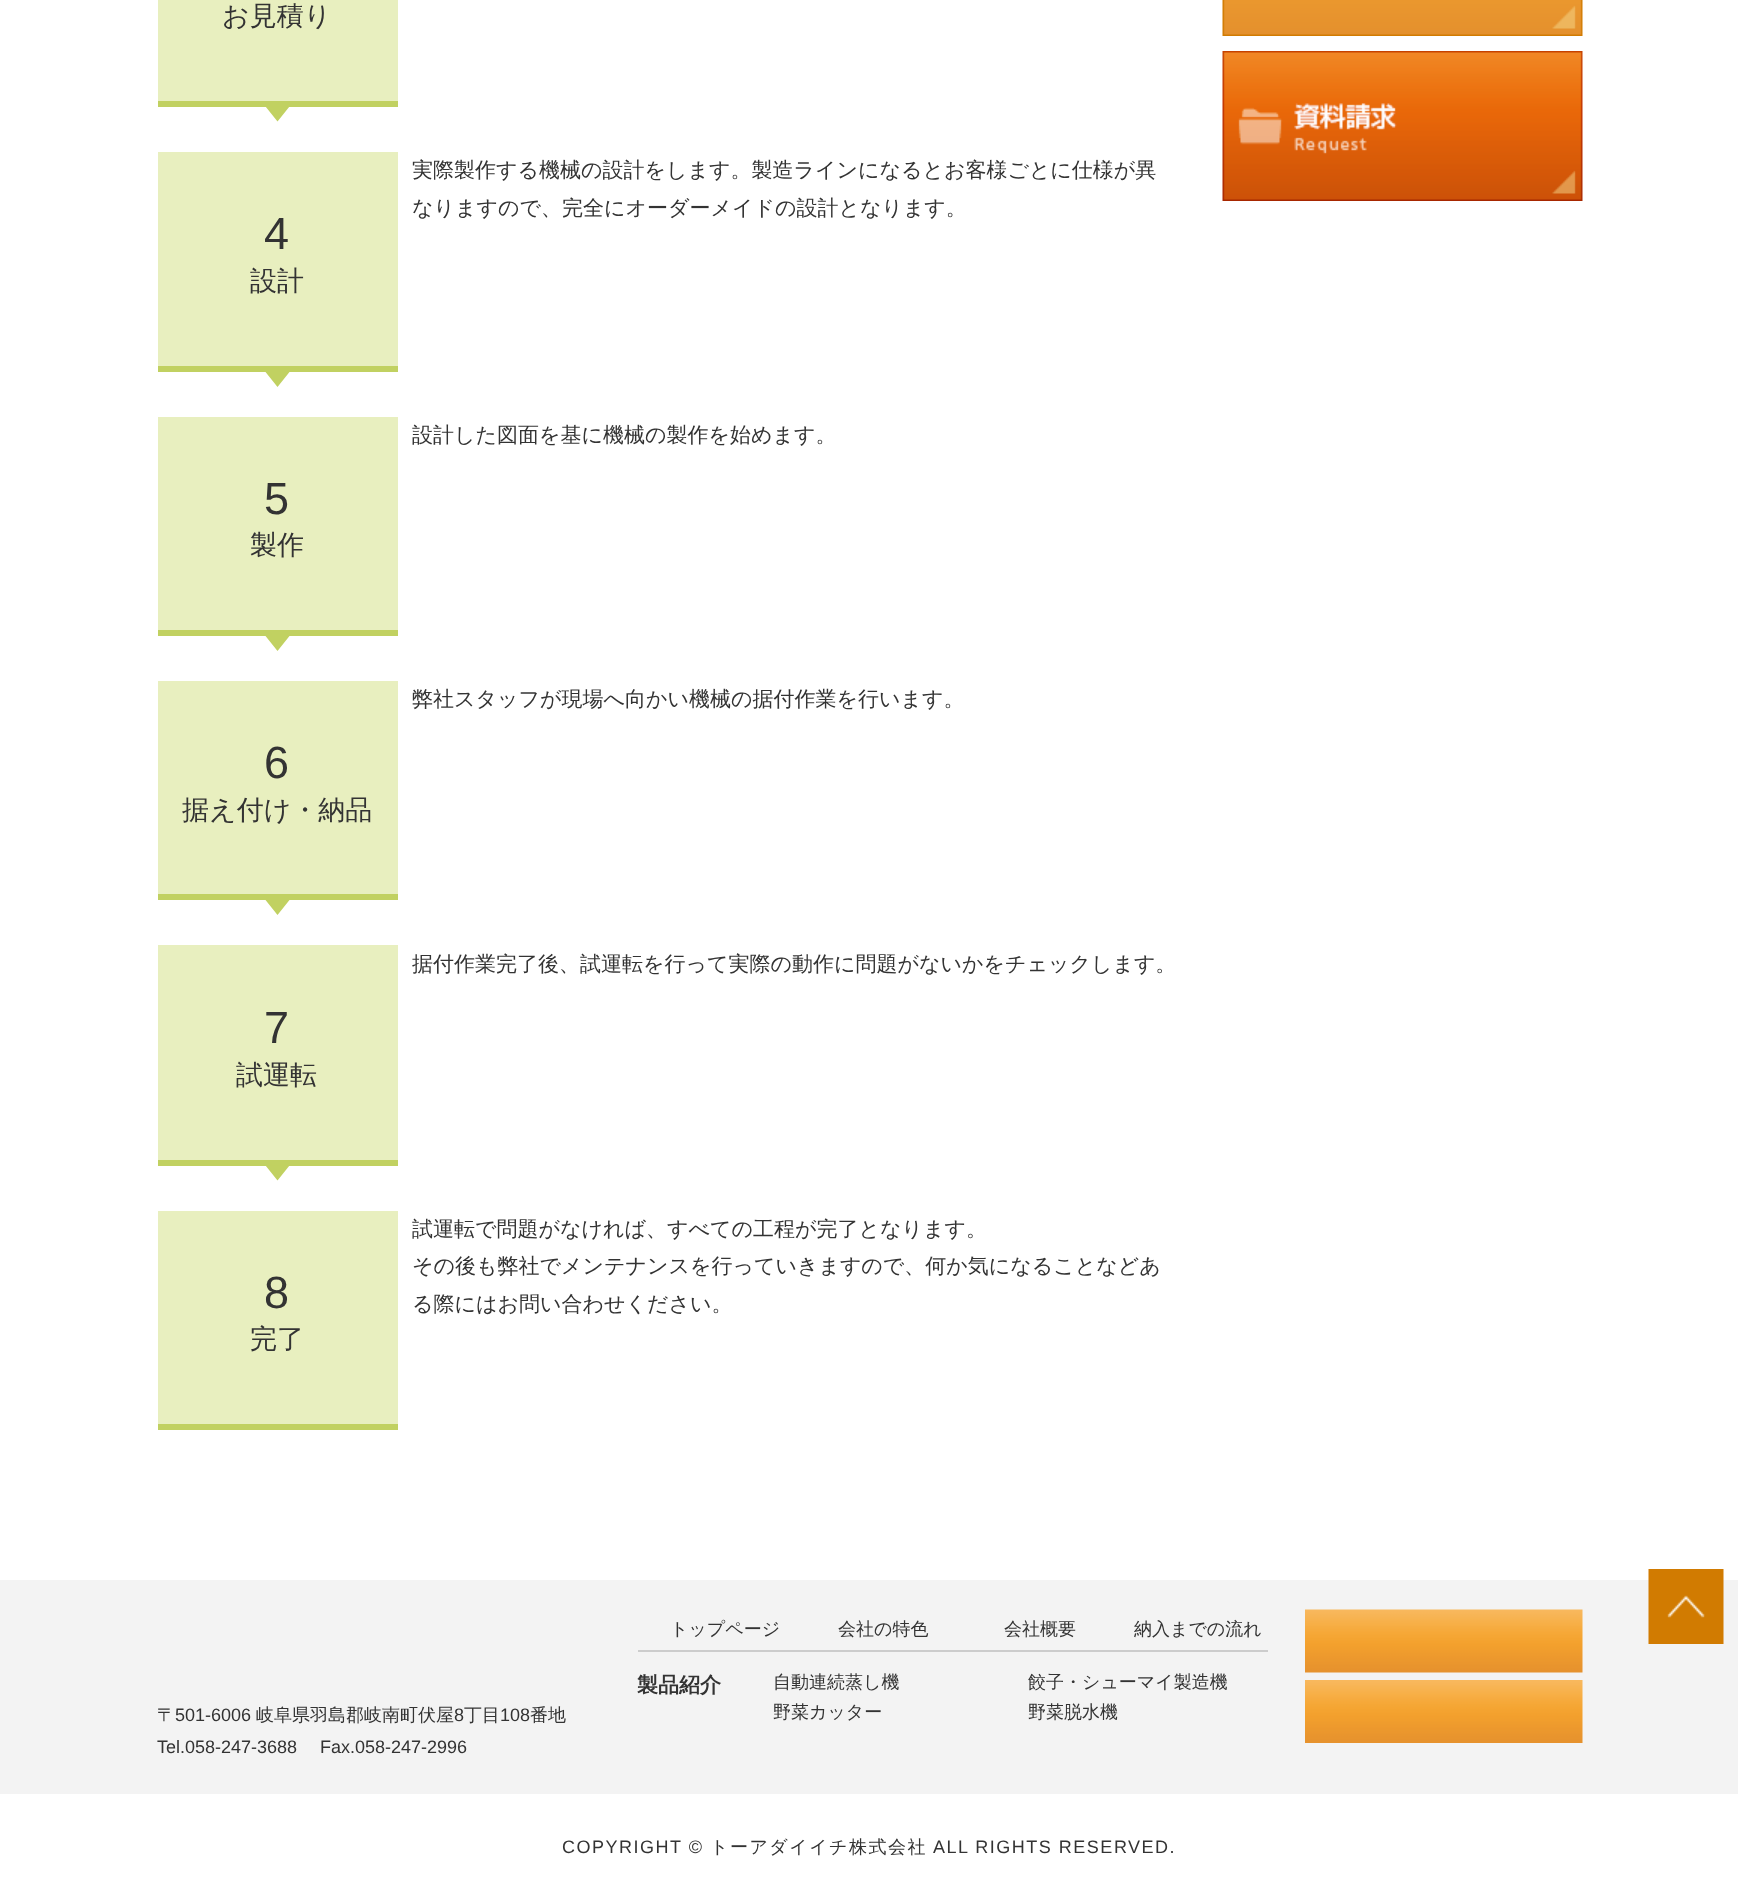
<?xml version="1.0" encoding="UTF-8"?>
<svg xmlns="http://www.w3.org/2000/svg" width="1738" height="1898">
    <rect width="100%" height="100%" fill="#FFFFFF"/>
    <rect x="158" y="0" width="240" height="101" fill="#E8EFBF"/>
    <rect x="158" y="101" width="240" height="6" fill="#C1D161"/>
    <text x="222" y="25" font-family="WenQuanYi Zen Hei" font-size="27" font-weight="500" fill="#333333">お見積り</text>
    <path d="M 265.5 106.5 H 289.5 L 277.5 121.5 Z" fill="#C1D161"/>
    <text font-family="WenQuanYi Zen Hei" font-size="21" font-weight="500" fill="#333333">
        <tspan x="412" y="177">実際製作する機械の設計をします。製造ラインになるとお客様ごとに仕様が異</tspan>
        <tspan x="412" y="215">なりますので、完全にオーダーメイドの設計となります。</tspan>
    </text>
    <rect x="158" y="152" width="240" height="214" fill="#E8EFBF"/>
    <rect x="158" y="366" width="240" height="6" fill="#C1D161"/>
    <text x="264" y="249" font-family="Liberation Sans" font-size="45" fill="#333333">4</text>
    <text x="250" y="290" font-family="WenQuanYi Zen Hei" font-size="27" font-weight="500" fill="#333333">設計</text>
    <path d="M 265.5 372 H 289.5 L 277.5 387 Z" fill="#C1D161"/>
    <text x="412" y="442" font-family="WenQuanYi Zen Hei" font-size="21" font-weight="500" fill="#333333">設計した図面を基に機械の製作を始めます。</text>
    <rect x="158" y="417" width="240" height="213" fill="#E8EFBF"/>
    <rect x="158" y="630" width="240" height="6" fill="#C1D161"/>
    <text x="264" y="514" font-family="Liberation Sans" font-size="45" fill="#333333">5</text>
    <text x="250" y="554" font-family="WenQuanYi Zen Hei" font-size="27" font-weight="500" fill="#333333">製作</text>
    <path d="M 265.5 636 H 289.5 L 277.5 651 Z" fill="#C1D161"/>
    <text x="412" y="706" font-family="WenQuanYi Zen Hei" font-size="21" font-weight="500" fill="#333333">弊社スタッフが現場へ向かい機械の据付作業を行います。</text>
    <rect x="158" y="681" width="240" height="213" fill="#E8EFBF"/>
    <rect x="158" y="894" width="240" height="6" fill="#C1D161"/>
    <text x="264" y="778" font-family="Liberation Sans" font-size="45" fill="#333333">6</text>
    <text x="182" y="819" font-family="WenQuanYi Zen Hei" font-size="27" font-weight="500" fill="#333333">据え付け・納品</text>
    <path d="M 265.5 900 H 289.5 L 277.5 915 Z" fill="#C1D161"/>
    <text x="412" y="971" font-family="WenQuanYi Zen Hei" font-size="21" font-weight="500" fill="#333333">据付作業完了後、試運転を行って実際の動作に問題がないかをチェックします。</text>
    <rect x="158" y="945" width="240" height="215" fill="#E8EFBF"/>
    <rect x="158" y="1160" width="240" height="6" fill="#C1D161"/>
    <text x="264" y="1043" font-family="Liberation Sans" font-size="45" fill="#333333">7</text>
    <text x="236" y="1084" font-family="WenQuanYi Zen Hei" font-size="27" font-weight="500" fill="#333333">試運転</text>
    <path d="M 265.5 1165.5 H 289.5 L 277.5 1180.5 Z" fill="#C1D161"/>
    <text x="412" y="1236" font-family="WenQuanYi Zen Hei" font-size="21" font-weight="500" fill="#333333">試運転で問題がなければ、すべての工程が完了となります。</text>
    <rect x="158" y="1211" width="240" height="213" fill="#E8EFBF"/>
    <rect x="158" y="1424" width="240" height="6" fill="#C1D161"/>
    <text x="264" y="1308" font-family="Liberation Sans" font-size="45" fill="#333333">8</text>
    <text x="250" y="1348" font-family="WenQuanYi Zen Hei" font-size="27" font-weight="500" fill="#333333">完了</text>
    <text font-family="WenQuanYi Zen Hei" font-size="21" font-weight="500" fill="#333333">
        <tspan x="412" y="1273">その後も弊社でメンテナンスを行っていきますので、何か気になることなどあ</tspan>
        <tspan x="412" y="1311">る際にはお問い合わせください。</tspan>
    </text>
    <image x="1222" y="0" width="361" height="36" href="img_01.png"/>
    <image x="1222" y="51" width="361" height="150" href="img_02.png"/>
    <rect x="0" y="1580" width="1738" height="214" fill="#F3F3F3"/>
    <image x="1648" y="1569" width="76" height="75" href="img_03.png"/>
    <text x="670" y="1635" font-family="WenQuanYi Zen Hei" font-size="18" font-weight="500" fill="#333333">トップページ</text>
    <text x="838" y="1635" font-family="WenQuanYi Zen Hei" font-size="18" font-weight="500" fill="#333333">会社の特色</text>
    <text x="1004" y="1635" font-family="WenQuanYi Zen Hei" font-size="18" font-weight="500" fill="#333333">会社概要</text>
    <text x="1134" y="1635" font-family="WenQuanYi Zen Hei" font-size="18" font-weight="500" fill="#333333">納入までの流れ</text>
    <image x="1305" y="1609" width="278" height="64" href="img_04.png"/>
    <image x="1305" y="1680" width="278" height="63" href="img_05.png"/>
    <rect x="638" y="1650" width="630" height="2" fill="#CCCCCC"/>
    <text x="637" y="1692" font-family="WenQuanYi Zen Hei" font-size="21" font-weight="700" fill="#333333">製品紹介</text>
    <text x="773" y="1688" font-family="WenQuanYi Zen Hei" font-size="18" font-weight="500" fill="#333333">自動連続蒸し機</text>
    <text x="1028" y="1688" font-family="WenQuanYi Zen Hei" font-size="18" font-weight="500" fill="#333333">餃子・シューマイ製造機</text>
    <text x="773" y="1718" font-family="WenQuanYi Zen Hei" font-size="18" font-weight="500" fill="#333333">野菜カッター</text>
    <text x="1028" y="1718" font-family="WenQuanYi Zen Hei" font-size="18" font-weight="500" fill="#333333">野菜脱水機</text>
    <text x="157" y="1721" font-family="WenQuanYi Zen Hei" font-size="18" font-weight="500" fill="#333333">〒</text>
    <text x="175" y="1721" font-family="Liberation Sans" font-size="18" fill="#333333">501-6006</text>
    <text x="256" y="1721" font-family="WenQuanYi Zen Hei" font-size="18" font-weight="500" fill="#333333">岐阜県羽島郡岐南町伏屋</text>
    <text x="454" y="1721" font-family="Liberation Sans" font-size="18" fill="#333333">8</text>
    <text x="464" y="1721" font-family="WenQuanYi Zen Hei" font-size="18" font-weight="500" fill="#333333">丁目</text>
    <text x="500" y="1721" font-family="Liberation Sans" font-size="18" fill="#333333">108</text>
    <text x="530" y="1721" font-family="WenQuanYi Zen Hei" font-size="18" font-weight="500" fill="#333333">番地</text>
    <text x="157" y="1753" font-family="Liberation Sans" font-size="18" fill="#333333">Tel.058-247-3688</text>
    <text x="320" y="1753" font-family="Liberation Sans" font-size="18" fill="#333333">Fax.058-247-2996</text>
    <text x="562" y="1853" font-family="Liberation Sans" font-size="18" letter-spacing="1.5" fill="#333333">COPYRIGHT ©</text>
    <text x="710" y="1853" font-family="WenQuanYi Zen Hei" font-size="18" font-weight="500" letter-spacing="1.5" fill="#333333">トーアダイイチ株式会社</text>
    <text x="933" y="1853" font-family="Liberation Sans" font-size="18" letter-spacing="1.5" fill="#333333">ALL RIGHTS RESERVED.</text>
</svg>
